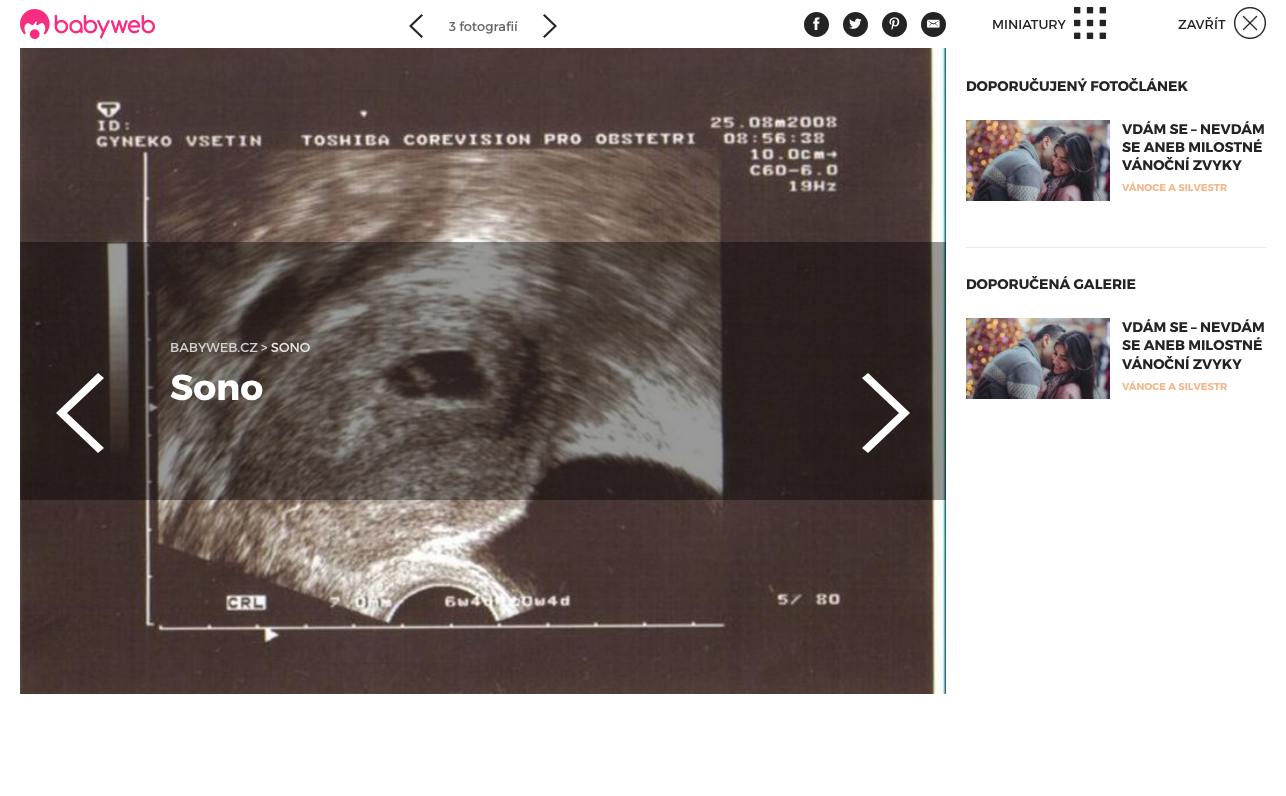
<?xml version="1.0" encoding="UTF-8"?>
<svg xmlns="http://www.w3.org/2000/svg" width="1286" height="796">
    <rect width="100%" height="100%" fill="#FFFFFF"/>
    <image x="20" y="9" width="135" height="30" href="img_01.png"/>
    <path d="M 412 26 L 423 15.5 L 421.5 14 L 409 26 L 421.5 38 L 423 36.5 Z" fill="#242424"/>
    <text x="449" y="31" font-family="Montserrat" font-size="13" fill="#666666">3 fotografií</text>
    <path d="M 543 15.5 L 554 26 L 543 36.5 L 544.5 38 L 557 26 L 544.5 14 Z" fill="#242424"/>
    <circle cx="816.5" cy="24.5" r="12.5" fill="#242424"/>
    <image x="813" y="17" width="7" height="13" href="img_02.png"/>
    <circle cx="855.5" cy="24.5" r="12.5" fill="#242424"/>
    <image x="849" y="18" width="13" height="11" href="img_03.png"/>
    <circle cx="894.5" cy="24.5" r="12.5" fill="#242424"/>
    <image x="889" y="17" width="11" height="13" href="img_04.png"/>
    <circle cx="933.5" cy="24.5" r="12.5" fill="#242424"/>
    <image x="927" y="19" width="13" height="9" href="img_05.png"/>
    <image x="20" y="48" width="926" height="646" href="img_06.png"/>
    <rect x="20" y="242" width="926" height="258" fill="#000000" fill-opacity="0.4"/>
    <path d="M 67 413 L 104 378 L 98 373 L 56 413 L 98 453 L 104 448 Z" fill="#FFFFFF"/>
    <text x="170" y="352" font-family="Montserrat" font-size="13" fill="#D1D1D1">BABYWEB.CZ</text>
    <text x="261" y="352" font-family="Montserrat" font-size="13" fill="#E6E6E6">&gt; SONO</text>
    <text x="170" y="400" font-family="Montserrat" font-size="36" font-weight="700" fill="#FFFFFF">Sono</text>
    <path d="M 862 378 L 899 413 L 862 448 L 868 453 L 910 413 L 868 373 Z" fill="#FFFFFF"/>
    <text x="992" y="29" font-family="Montserrat" font-size="13" fill="#242424">MINIATURY</text>
    <image x="1074" y="7" width="32" height="32" href="img_07.png"/>
    <text x="1178" y="29" font-family="Montserrat" font-size="13" fill="#242424">ZAVŘÍT</text>
    <image x="1234" y="7" width="32" height="32" href="img_08.png"/>
    <text x="966" y="91" font-family="Montserrat" font-size="14" font-weight="700" fill="#242424">DOPORUČUJENÝ FOTOČLÁNEK</text>
    <image x="966" y="120" width="144" height="81" href="img_09.png"/>
    <text font-family="Montserrat" font-size="14" font-weight="700" fill="#242424">
        <tspan x="1122" y="134">VDÁM SE – NEVDÁM</tspan>
        <tspan x="1122" y="152">SE ANEB MILOSTNÉ</tspan>
        <tspan x="1122" y="170">VÁNOČNÍ ZVYKY</tspan>
    </text>
    <text x="1122" y="191" font-family="Montserrat" font-size="10" font-weight="700" fill="#F4B789">VÁNOCE A SILVESTR</text>
    <rect x="966" y="247" width="300" height="1" fill="#EBEBEB"/>
    <text x="966" y="289" font-family="Montserrat" font-size="14" font-weight="700" fill="#242424">DOPORUČENÁ GALERIE</text>
    <image x="966" y="318" width="144" height="81" href="img_09.png"/>
    <text font-family="Montserrat" font-size="14" font-weight="700" fill="#242424">
        <tspan x="1122" y="332">VDÁM SE – NEVDÁM</tspan>
        <tspan x="1122" y="350">SE ANEB MILOSTNÉ</tspan>
        <tspan x="1122" y="369">VÁNOČNÍ ZVYKY</tspan>
    </text>
    <text x="1122" y="390" font-family="Montserrat" font-size="10" font-weight="700" fill="#F4B789">VÁNOCE A SILVESTR</text>
</svg>
